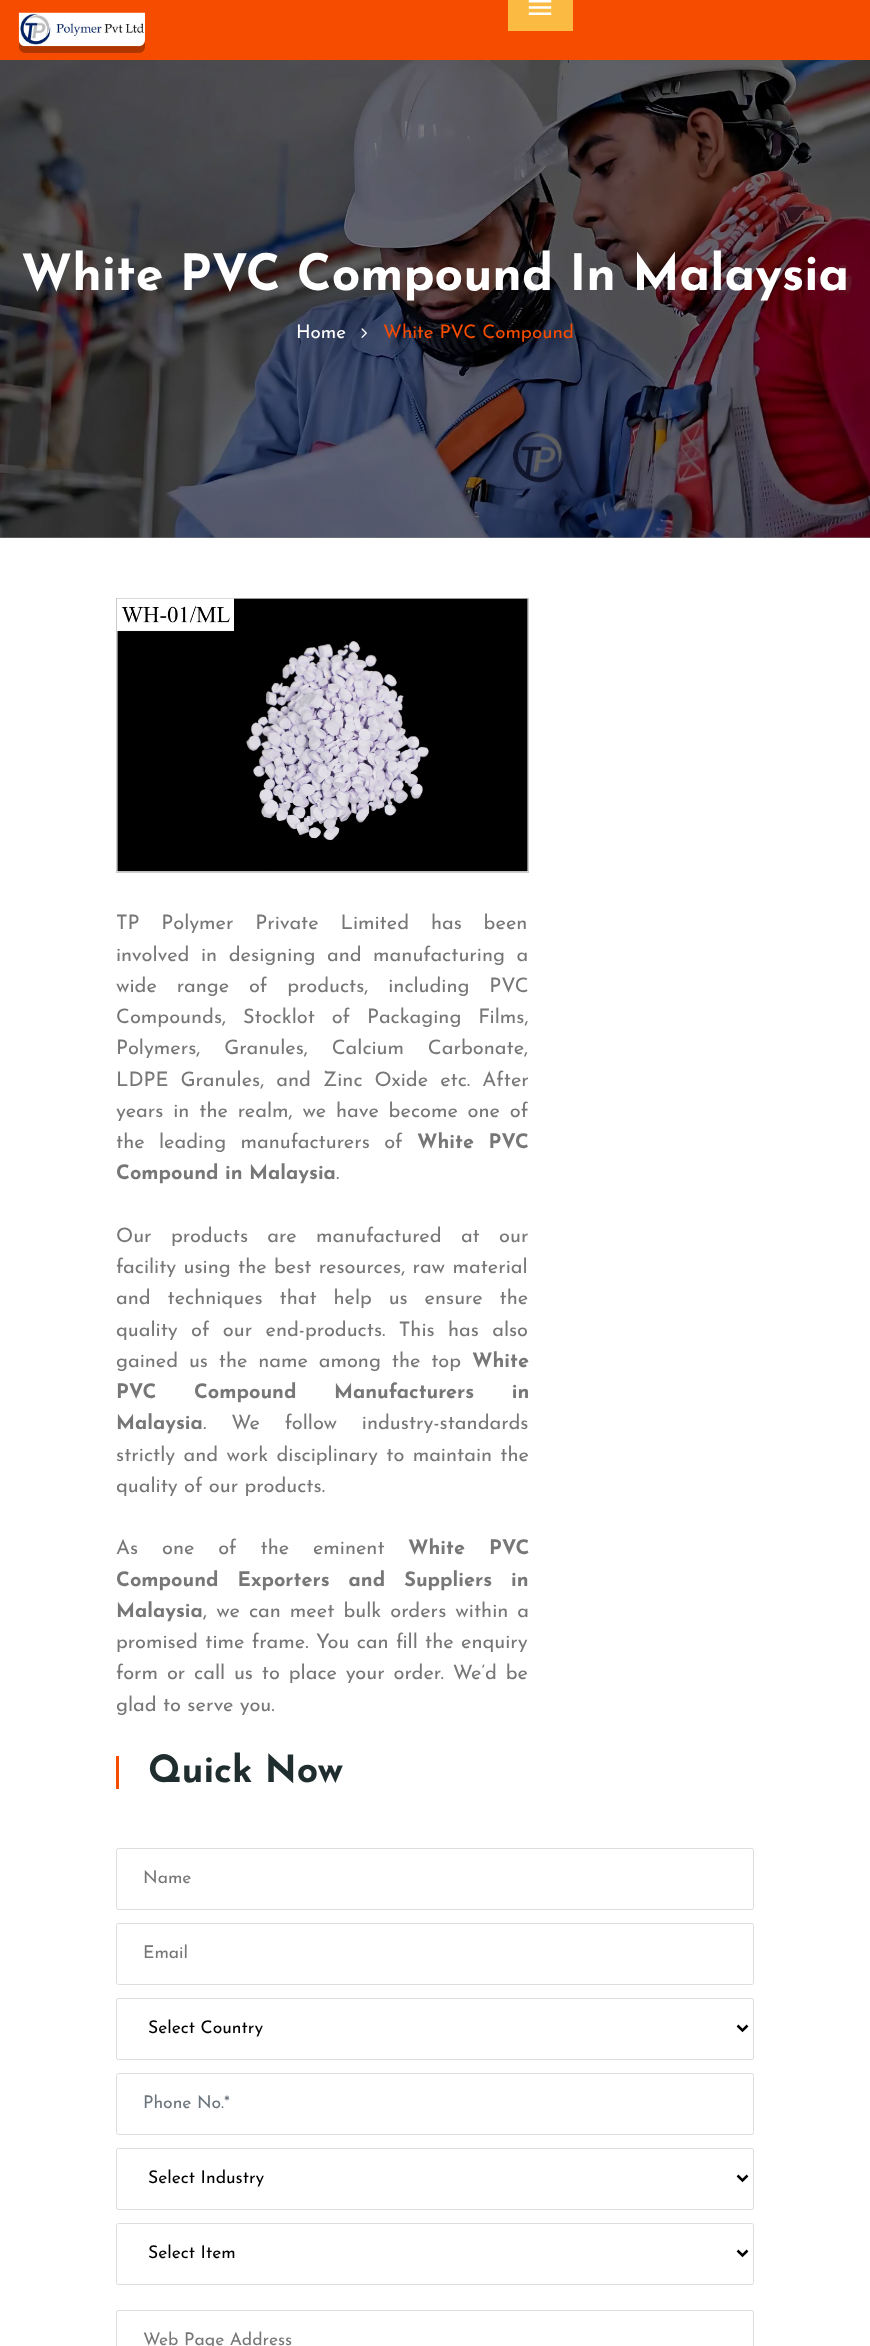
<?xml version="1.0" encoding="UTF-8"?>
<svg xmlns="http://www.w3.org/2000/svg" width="870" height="2346">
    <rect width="100%" height="100%" fill="#FFFFFF"/>
    <rect x="0" y="537" width="870" height="1" fill="#808080"/>
    <rect x="0" y="0" width="870" height="60" fill="#F54C00"/>
    <path d="M 19 42 V 47 C 19 50 22 53 25 53 H 139 C 142 53 145 50 145 47 V 40 C 145 43 142 46 139 46 H 25 C 22 46 20 44 19 42 Z" fill="#AE3600"/>
    <image x="18" y="12" width="127" height="35" href="img_01.png"/>
    <rect x="508" y="0" width="65" height="31" fill="#FBBA42"/>
    <image x="528" y="0" width="24" height="15" href="img_02.png"/>
    <image x="0" y="60" width="870" height="478" href="img_03.png"/>
    <text x="21" y="290" font-family="Josefin Sans" font-size="50" font-weight="700" fill="#FFFFFF">White PVC Compound In Malaysia</text>
    <text x="296" y="338" font-family="Josefin Sans" font-size="18.75" fill="#FFFFFF">Home</text>
    <image x="361" y="328" width="6" height="10" href="img_04.png"/>
    <text x="383" y="338" font-family="Josefin Sans" font-size="18.75" fill="#F54C00">White PVC Compound</text>
    <rect x="116.5" y="598.5" width="412" height="274" fill="none" stroke="#CCCCCC"/>
    <image x="117" y="598" width="411" height="274" href="img_05.png"/>
    <text font-family="Josefin Sans" font-size="20" fill="#777777">
        <tspan x="116" y="929" word-spacing="15.5">TP Polymer Private Limited has been</tspan>
        <tspan x="116" y="961" word-spacing="5.25">involved in designing and manufacturing a</tspan>
        <tspan x="116" y="992" word-spacing="13.5">wide range of products, including PVC</tspan>
        <tspan x="116" y="1023" word-spacing="10.5">Compounds, Stocklot of Packaging Films,</tspan>
        <tspan x="116" y="1054" word-spacing="17.5">Polymers, Granules, Calcium Carbonate,</tspan>
        <tspan x="116" y="1086" word-spacing="5.75">LDPE Granules, and Zinc Oxide etc. After</tspan>
        <tspan x="116" y="1117" word-spacing="3.5">years in the realm, we have become one of</tspan>
        <tspan x="116" y="1148" word-spacing="8">the leading manufacturers of</tspan>
    </text>
    <text x="417" y="1148" word-spacing="8" font-family="Josefin Sans" font-size="20" font-weight="700" fill="#777777">White PVC</text>
    <text x="116" y="1179" font-family="Josefin Sans" font-size="20" font-weight="700" fill="#777777">Compound in Malaysia</text>
    <text x="336" y="1179" font-family="Josefin Sans" font-size="20" fill="#777777">.</text>
    <text font-family="Josefin Sans" font-size="20" fill="#777777">
        <tspan x="116" y="1242" word-spacing="13">Our products are manufactured at our</tspan>
        <tspan x="116" y="1273" word-spacing="1">facility using the best resources, raw material</tspan>
        <tspan x="116" y="1304" word-spacing="10.5">and techniques that help us ensure the</tspan>
        <tspan x="116" y="1336" word-spacing="7">quality of our end-products. This has also</tspan>
        <tspan x="116" y="1367" word-spacing="4.5">gained us the name among the top</tspan>
    </text>
    <text x="472" y="1367" font-family="Josefin Sans" font-size="20" font-weight="700" fill="#777777">White</text>
    <text font-family="Josefin Sans" font-size="20" font-weight="700" fill="#777777">
        <tspan x="116" y="1398" word-spacing="31">PVC Compound Manufacturers in</tspan>
        <tspan x="116" y="1429">Malaysia</tspan>
    </text>
    <text x="203" y="1429" word-spacing="18.5" font-family="Josefin Sans" font-size="20" fill="#777777">. We follow industry-standards</text>
    <text font-family="Josefin Sans" font-size="20" fill="#777777">
        <tspan x="116" y="1461" word-spacing="2">strictly and work disciplinary to maintain the</tspan>
        <tspan x="116" y="1492">quality of our products.</tspan>
    </text>
    <text x="116" y="1554" word-spacing="17.5" font-family="Josefin Sans" font-size="20" fill="#777777">As one of the eminent</text>
    <text x="408" y="1554" word-spacing="17.5" font-family="Josefin Sans" font-size="20" font-weight="700" fill="#777777">White PVC</text>
    <text font-family="Josefin Sans" font-size="20" font-weight="700" fill="#777777">
        <tspan x="116" y="1586" word-spacing="12.5">Compound Exporters and Suppliers in</tspan>
        <tspan x="116" y="1617">Malaysia</tspan>
    </text>
    <text x="203" y="1617" word-spacing="2.75" font-family="Josefin Sans" font-size="20" fill="#777777">, we can meet bulk orders within a</text>
    <text font-family="Josefin Sans" font-size="20" fill="#777777">
        <tspan x="116" y="1648" word-spacing="1">promised time frame. You can fill the enquiry</tspan>
        <tspan x="116" y="1679" word-spacing="2.5">form or call us to place your order. We’d be</tspan>
        <tspan x="116" y="1711">glad to serve you.</tspan>
    </text>
    <rect x="116" y="1756" width="3" height="33" fill="#F54C00"/>
    <text x="148" y="1782" font-family="Josefin Sans" font-size="37.5" font-weight="700" fill="#1F2D2E">Quick Now</text>
    <rect x="116.5" y="1848.5" width="637" height="61" rx="2" fill="none" stroke="#DDDDDD"/>
    <text x="143" y="1883" font-family="Josefin Sans" font-size="17.5" fill="#777777">Name</text>
    <rect x="116.5" y="1923.5" width="637" height="61" rx="2" fill="none" stroke="#DDDDDD"/>
    <text x="143" y="1958" font-family="Josefin Sans" font-size="17.5" fill="#777777">Email</text>
    <rect x="116.5" y="1998.5" width="637" height="61" rx="2" fill="none" stroke="#DDDDDD"/>
    <path d="M 737.5 2025.5 L 742.5 2030.5 L 747.5 2025.5" fill="none" stroke="#000000" stroke-width="2.5"/>
    <text x="148" y="2033" font-family="Josefin Sans" font-size="17.5" fill="#000000">Select Country</text>
    <rect x="116.5" y="2073.5" width="637" height="61" rx="2" fill="none" stroke="#DDDDDD"/>
    <text x="143" y="2108" font-family="Josefin Sans" font-size="17.5" fill="#6C757D">Phone No.*</text>
    <rect x="116.5" y="2148.5" width="637" height="61" rx="2" fill="none" stroke="#DDDDDD"/>
    <path d="M 737.5 2175.5 L 742.5 2180.5 L 747.5 2175.5" fill="none" stroke="#000000" stroke-width="2.5"/>
    <text x="148" y="2183" font-family="Josefin Sans" font-size="17.5" fill="#000000">Select Industry</text>
    <rect x="116.5" y="2223.5" width="637" height="61" rx="2" fill="none" stroke="#DDDDDD"/>
    <path d="M 737.5 2250.5 L 742.5 2255.5 L 747.5 2250.5" fill="none" stroke="#000000" stroke-width="2.5"/>
    <text x="148" y="2258" font-family="Josefin Sans" font-size="17.5" fill="#000000">Select Item</text>
    <rect x="116.5" y="2310.5" width="637" height="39" rx="2" fill="none" stroke="#DDDDDD"/>
    <text x="143" y="2345" font-family="Josefin Sans" font-size="17.5" fill="#777777">Web Page Address</text>
</svg>
